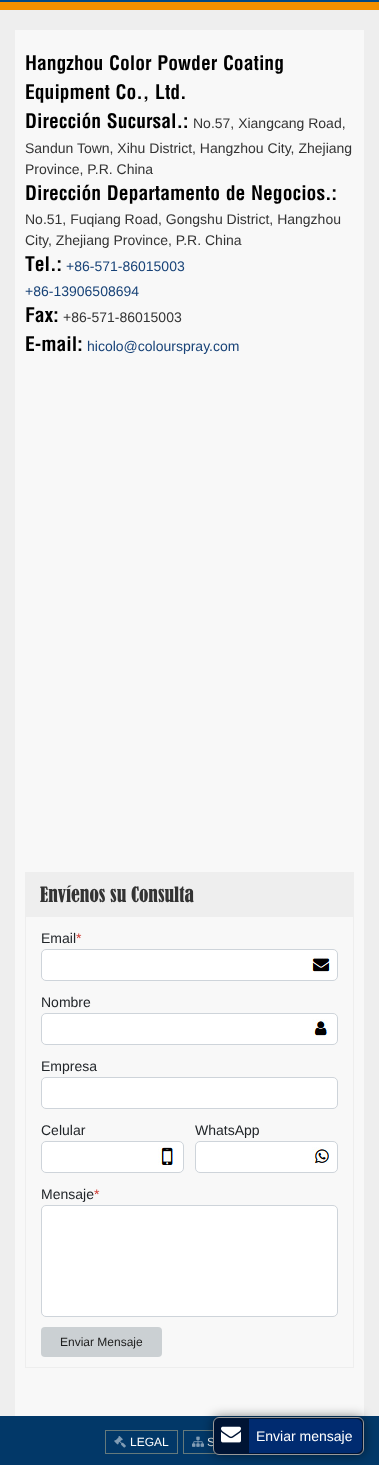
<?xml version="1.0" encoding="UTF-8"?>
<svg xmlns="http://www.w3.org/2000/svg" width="379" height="1465">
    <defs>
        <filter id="blur1" x="-50%" y="-200%" width="200%" height="500%"><feGaussianBlur stdDeviation="6"/></filter>
    </defs>
    <rect width="100%" height="100%" fill="#014886"/>
    <rect x="0" y="2" width="379" height="8" fill="#F39000"/>
    <rect x="0" y="10" width="379" height="1406" fill="#EEEEEE"/>
    <rect x="15" y="30" width="349" height="1386" fill="#F8F8F8"/>
    <text font-family="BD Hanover" font-size="19.6" fill="#000000">
        <tspan x="25" y="70">Hangzhou Color Powder Coating</tspan>
        <tspan x="25" y="99">Equipment Co., Ltd.</tspan>
        <tspan x="25" y="128">Dirección Sucursal.:</tspan>
    </text>
    <text x="193" y="128" font-family="Liberation Sans" font-size="14" fill="#333333">No.57, Xiangcang Road,</text>
    <text font-family="Liberation Sans" font-size="14" fill="#333333">
        <tspan x="25" y="153">Sandun Town, Xihu District, Hangzhou City, Zhejiang</tspan>
        <tspan x="25" y="174">Province, P.R. China</tspan>
    </text>
    <text x="25" y="200" font-family="BD Hanover" font-size="19.6" fill="#000000">Dirección Departamento de Negocios.:</text>
    <text font-family="Liberation Sans" font-size="14" fill="#333333">
        <tspan x="25" y="224">No.51, Fuqiang Road, Gongshu District, Hangzhou</tspan>
        <tspan x="25" y="245">City, Zhejiang Province, P.R. China</tspan>
    </text>
    <text x="25" y="271" font-family="BD Hanover" font-size="19.6" fill="#000000">Tel.:</text>
    <text x="66" y="271" font-family="Liberation Sans" font-size="14" fill="#174277">+86-571-86015003</text>
    <text x="25" y="296" font-family="Liberation Sans" font-size="14" fill="#174277">+86-13906508694</text>
    <text x="25" y="322" font-family="BD Hanover" font-size="19.6" fill="#000000">Fax:</text>
    <text x="63" y="322" font-family="Liberation Sans" font-size="14" fill="#333333">+86-571-86015003</text>
    <text x="25" y="351" font-family="BD Hanover" font-size="19.6" fill="#000000">E-mail:</text>
    <text x="87" y="351" font-family="Liberation Sans" font-size="14" fill="#174277">hicolo@colourspray.com</text>
    <rect x="25.5" y="872.5" width="328" height="495" fill="none" stroke="#EEEEEE"/>
    <rect x="26" y="873" width="327" height="44" fill="#EEEEEE"/>
    <text x="40" y="902" font-family="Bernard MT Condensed" font-size="19.6" fill="#333333">Envíenos su Consulta</text>
    <text x="41" y="943" font-family="Liberation Sans" font-size="14" fill="#212529">Email</text>
    <text x="76" y="943" font-family="Liberation Sans" font-size="14" fill="#CE352C">*</text>
    <rect x="41.5" y="949.5" width="296" height="31" rx="4.5" fill="#FFFFFF" stroke="#CED4DA"/>
    <image x="312" y="955" width="18" height="17" href="img_01.png"/>
    <text x="41" y="1007" font-family="Liberation Sans" font-size="14" fill="#212529">Nombre</text>
    <rect x="41.5" y="1013.5" width="296" height="31" rx="4.5" fill="#FFFFFF" stroke="#CED4DA"/>
    <image x="312" y="1019" width="16" height="18" href="img_02.png"/>
    <text x="41" y="1071" font-family="Liberation Sans" font-size="14" fill="#212529">Empresa</text>
    <rect x="41.5" y="1077.5" width="296" height="31" rx="4.5" fill="#FFFFFF" stroke="#CED4DA"/>
    <text x="41" y="1135" font-family="Liberation Sans" font-size="14" fill="#212529">Celular</text>
    <rect x="41.5" y="1141.5" width="142" height="31" rx="4.5" fill="#FFFFFF" stroke="#CED4DA"/>
    <image x="158" y="1147" width="16" height="18" href="img_03.png"/>
    <text x="195" y="1135" font-family="Liberation Sans" font-size="14" fill="#212529">WhatsApp</text>
    <rect x="195.5" y="1141.5" width="142" height="31" rx="4.5" fill="#FFFFFF" stroke="#CED4DA"/>
    <image x="312" y="1147" width="17" height="17" href="img_04.png"/>
    <text x="41" y="1199" font-family="Liberation Sans" font-size="14" fill="#212529">Mensaje</text>
    <text x="94" y="1199" font-family="Liberation Sans" font-size="14" fill="#CE352C">*</text>
    <rect x="41.5" y="1205.5" width="296" height="111" rx="4.5" fill="#FFFFFF" stroke="#CED4DA"/>
    <rect x="41" y="1327" width="121" height="30" rx="4" fill="#CBD0D3"/>
    <text x="60" y="1346" font-family="Liberation Sans" font-size="12" fill="#1D1D1D">Enviar Mensaje</text>
    <rect x="0" y="1416" width="379" height="49" fill="#023868"/>
    <rect x="105.5" y="1430.5" width="72" height="23" fill="none" stroke="#64797B"/>
    <image x="114" y="1436" width="12" height="12" href="img_05.png"/>
    <text x="130" y="1446" font-family="Liberation Sans" font-size="12" fill="#FFFFFF">LEGAL</text>
    <rect x="183.5" y="1430.5" width="85" height="23" fill="none" stroke="#64797B"/>
    <image x="192" y="1436" width="12" height="11" href="img_06.png"/>
    <text x="207" y="1446" font-family="Liberation Sans" font-size="12" fill="#FFFFFF">S</text>
    <rect x="213" y="1417" width="151" height="38" rx="6" fill="#000000" fill-opacity="0.5" filter="url(#blur1)"/>
    <rect x="213.5" y="1417.5" width="150" height="37" rx="5.5" fill="#001434" stroke="#999999"/>
    <image x="221" y="1426" width="20" height="17" href="img_07.png"/>
    <path d="M 249 1419 H 356 C 359.5 1419 362 1421.5 362 1425 V 1447 C 362 1450.5 359.5 1453 356 1453 H 249 Z" fill="#002B70"/>
    <text x="256" y="1441" font-family="Liberation Sans" font-size="14" fill="#FFFFFF">Enviar mensaje</text>
</svg>
